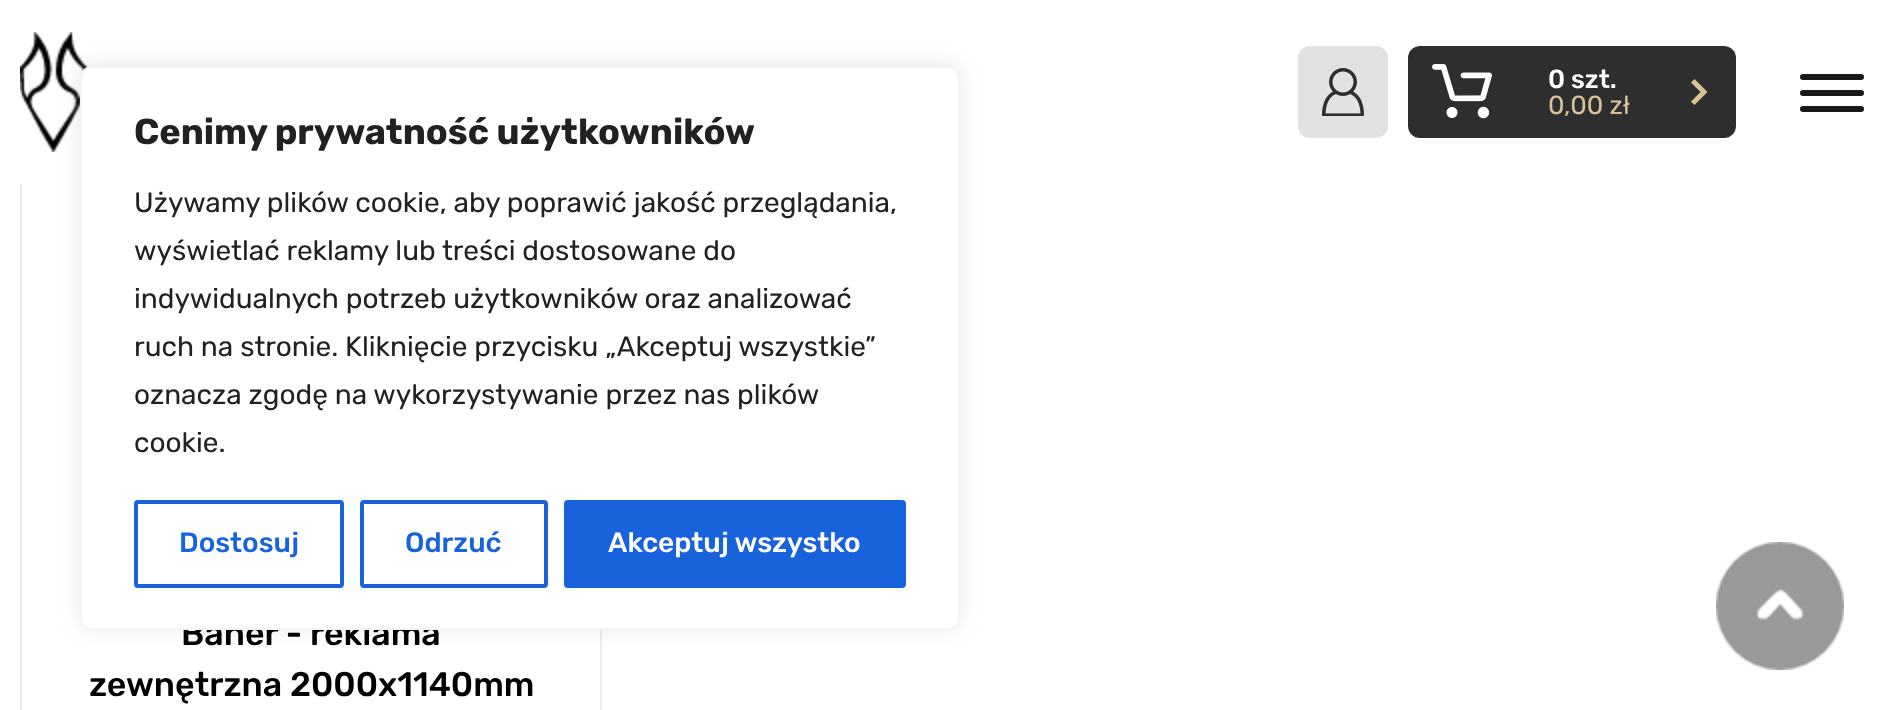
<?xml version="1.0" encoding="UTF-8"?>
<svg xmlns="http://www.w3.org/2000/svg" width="1884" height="710">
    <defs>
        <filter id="blur1" x="-50%" y="-200%" width="200%" height="500%"><feGaussianBlur stdDeviation="10"/></filter>
    </defs>
    <rect width="100%" height="100%" fill="#FFFFFF"/>
    <rect x="21" y="21" width="580" height="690" fill="none" stroke="#EBEBEB" stroke-width="2"/>
    <rect x="20" y="20" width="582" height="164" fill="#FFFFFF"/>
    <image x="20" y="32" width="69" height="120" href="img_01.png"/>
    <rect x="1298" y="46" width="90" height="92" rx="12" fill="#E2E2E2"/>
    <image x="1322" y="68" width="42" height="48" href="img_02.png"/>
    <rect x="1408" y="46" width="328" height="92" rx="12" fill="#2E2E2E"/>
    <image x="1432" y="64" width="60" height="55" href="img_03.png"/>
    <text x="1548" y="88" font-family="Rubik" font-size="26" font-weight="500" fill="#FFFFFF">0 szt.</text>
    <text x="1548" y="114" font-family="Rubik" font-size="26" fill="#DAC197">0,00 zł</text>
    <path d="M 1691 82.5 L 1700.5 92 L 1691 101.5 L 1694.5 105 L 1707.5 92 L 1694.5 79 Z" fill="#DAC197"/>
    <rect x="1800" y="74" width="64" height="6" rx="3" fill="#191919"/>
    <rect x="1800" y="90" width="64" height="6" rx="3" fill="#191919"/>
    <rect x="1800" y="106" width="64" height="6" rx="3" fill="#191919"/>
    <rect x="80" y="64" width="880" height="564" rx="12" fill="#ACABAB" fill-opacity="0.3" filter="url(#blur1)"/>
    <text x="181" y="645" font-family="Rubik" font-size="34" font-weight="500" fill="#000000">Baner - reklama</text>
    <rect x="81" y="67" width="878" height="562" rx="11" fill="#FFFFFF" stroke="#F4F4F4" stroke-width="2"/>
    <text x="134" y="144" font-family="Rubik" font-size="36" font-weight="700" fill="#212121">Cenimy prywatność użytkowników</text>
    <text font-family="Rubik" font-size="28" fill="#212121">
        <tspan x="134" y="212">Używamy plików cookie, aby poprawić jakość przeglądania,</tspan>
        <tspan x="134" y="260">wyświetlać reklamy lub treści dostosowane do</tspan>
        <tspan x="134" y="308">indywidualnych potrzeb użytkowników oraz analizować</tspan>
        <tspan x="134" y="356">ruch na stronie. Kliknięcie przycisku „Akceptuj wszystkie”</tspan>
        <tspan x="134" y="404">oznacza zgodę na wykorzystywanie przez nas plików</tspan>
        <tspan x="134" y="452">cookie.</tspan>
    </text>
    <rect x="136" y="502" width="206" height="84" rx="2" fill="none" stroke="#1863DC" stroke-width="4"/>
    <text x="179" y="552" font-family="Rubik" font-size="28" font-weight="500" fill="#1863DC">Dostosuj</text>
    <rect x="362" y="502" width="184" height="84" rx="2" fill="none" stroke="#1863DC" stroke-width="4"/>
    <text x="405" y="552" font-family="Rubik" font-size="28" font-weight="500" fill="#1863DC">Odrzuć</text>
    <rect x="566" y="502" width="338" height="84" rx="2" fill="#1863DC" stroke="#1863DC" stroke-width="4"/>
    <text x="608" y="552" font-family="Rubik" font-size="28" font-weight="500" fill="#FFFFFF">Akceptuj wszystko</text>
    <text x="89" y="696" font-family="Rubik" font-size="34" font-weight="500" fill="#000000">zewnętrzna 2000x1140mm</text>
    <image x="1716" y="542" width="128" height="128" href="img_04.png"/>
</svg>
